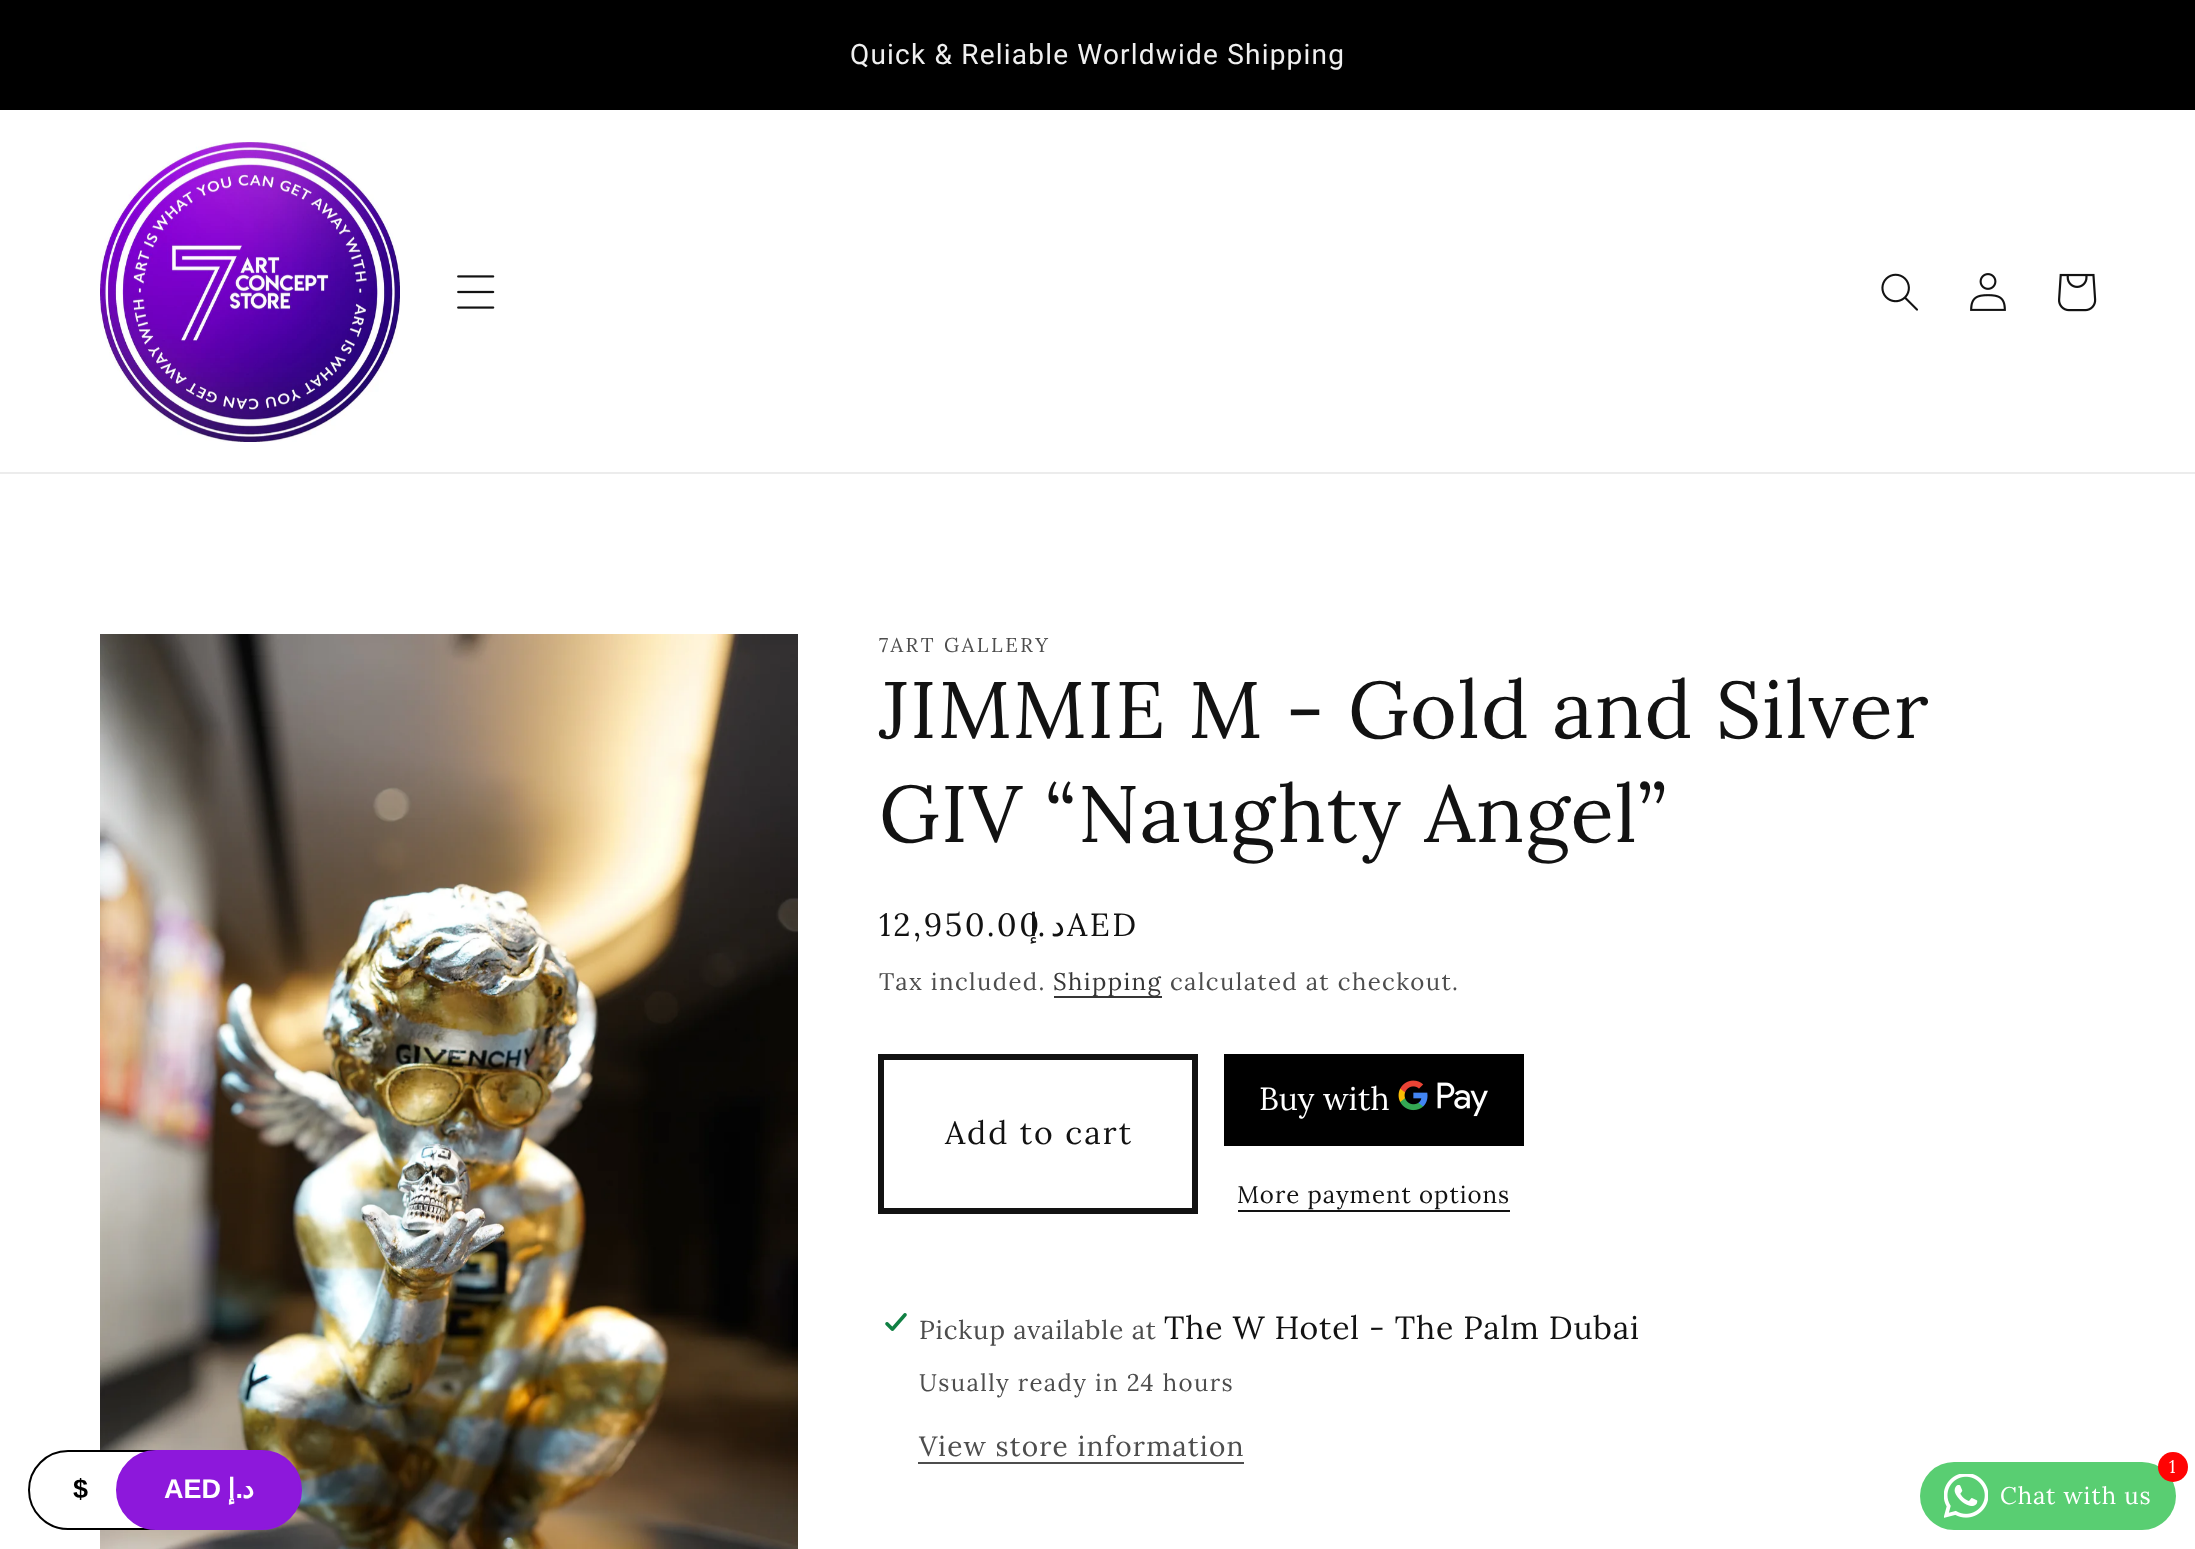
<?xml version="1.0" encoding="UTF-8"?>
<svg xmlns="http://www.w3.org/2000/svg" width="2195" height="1549">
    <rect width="100%" height="100%" fill="#FFFFFF"/>
    <rect x="0" y="0" width="2195" height="110" fill="#000000"/>
    <text x="850" y="64" font-family="Roboto" font-size="28" letter-spacing="1.2" fill="#F0F0F0">Quick &amp; Reliable Worldwide Shipping</text>
    <rect x="0" y="472" width="2195" height="2" fill="#ECECEC"/>
    <image x="100" y="142" width="300" height="300" href="img_01.png"/>
    <image x="457" y="275" width="38" height="34" href="img_02.png"/>
    <image x="1881" y="273" width="37" height="38" href="img_03.png"/>
    <image x="1970" y="273" width="36" height="38" href="img_04.png"/>
    <image x="2058" y="273" width="39" height="39" href="img_05.png"/>
    <image x="100" y="634" width="698" height="915" href="img_06.png"/>
    <text x="879" y="652" font-family="Lora" font-size="20" letter-spacing="2.6" fill="#4D4D4D">7ART GALLERY</text>
    <text font-family="Lora" font-size="80" letter-spacing="1.2" fill="#121212">
        <tspan x="879" y="738">JIMMIE M - Gold and Silver</tspan>
        <tspan x="879" y="842">GIV “Naughty Angel”</tspan>
    </text>
    <text x="879" y="936" font-family="Lora" font-size="32" letter-spacing="2.6" fill="#121212">12,950.00</text>
    <text x="1038" y="936" font-family="DejaVu Sans" font-size="32" letter-spacing="2.6" direction="rtl" fill="#121212">إ</text>
    <text x="1048" y="936" font-family="Lora" font-size="32" letter-spacing="2.6" direction="rtl" fill="#121212">.</text>
    <text x="1065" y="936" font-family="DejaVu Sans" font-size="32" letter-spacing="2.6" direction="rtl" fill="#121212">د</text>
    <text x="1067" y="936" font-family="Lora" font-size="32" letter-spacing="2.6" fill="#121212">AED</text>
    <text x="879" y="990" font-family="Lora" font-size="24" letter-spacing="1.4" fill="#4D4D4D">Tax included.</text>
    <rect x="1054" y="996" width="108" height="2" fill="#363636"/>
    <text x="1053" y="990" font-family="Lora" font-size="24" letter-spacing="1.4" fill="#353535">Shipping</text>
    <text x="1170" y="990" font-family="Lora" font-size="24" letter-spacing="1.4" fill="#4D4D4D">calculated at checkout.</text>
    <rect x="881" y="1057" width="314" height="154" fill="none" stroke="#121212" stroke-width="6"/>
    <text x="945" y="1144" font-family="Lora" font-size="32" letter-spacing="2" fill="#121212">Add to cart</text>
    <rect x="1224" y="1054" width="300" height="92" fill="#000000"/>
    <text x="1259" y="1110" font-family="Lora" font-size="32" fill="#FFFFFF">Buy with</text>
    <image x="1398" y="1080" width="90" height="37" href="img_07.png"/>
    <text x="1237" y="1203" font-family="Lora" font-size="24" letter-spacing="1" fill="#121212">More payment options</text>
    <rect x="1238" y="1210" width="272" height="2" fill="#121212"/>
    <image x="885" y="1313" width="22" height="18" href="img_08.png"/>
    <text x="919" y="1339" font-family="Lora" font-size="26" letter-spacing="0.8" fill="#4D4D4D">Pickup available at</text>
    <text x="1164" y="1339" font-family="Lora" font-size="32" letter-spacing="0.8" fill="#121212">The W Hotel - The Palm Dubai</text>
    <text x="919" y="1391" font-family="Lora" font-size="24" letter-spacing="1.4" fill="#4D4D4D">Usually ready in 24 hours</text>
    <text x="919" y="1456" font-family="Lora" font-size="28" letter-spacing="1.2" fill="#4D4D4D">View store information</text>
    <rect x="918" y="1462" width="326" height="2" fill="#4D4D4D"/>
    <rect x="29" y="1451" width="178" height="78" rx="39" fill="#FFFFFF" stroke="#000000" stroke-width="2"/>
    <text x="73" y="1498" font-family="Liberation Sans" font-size="27" font-weight="700" fill="#000000">$</text>
    <rect x="117" y="1451" width="184" height="78" rx="39" fill="#8D18DB" stroke="#8D18DB" stroke-width="2"/>
    <text x="164" y="1498" font-family="Liberation Sans" font-size="27" font-weight="700" fill="#FFFFFF">AED</text>
    <text x="235" y="1498" font-family="DejaVu Sans" font-size="27" font-weight="700" direction="rtl" fill="#FFFFFF">إ</text>
    <text x="243" y="1498" font-family="Liberation Sans" font-size="27" font-weight="700" direction="rtl" fill="#FFFFFF">.</text>
    <text x="254" y="1498" font-family="DejaVu Sans" font-size="27" font-weight="700" direction="rtl" fill="#FFFFFF">د</text>
    <rect x="1920" y="1462" width="256" height="68" rx="34" fill="#59CE72"/>
    <circle cx="2173" cy="1467" r="15" fill="#FF0303"/>
    <text x="2169" y="1473" font-family="Lora" font-size="18" letter-spacing="0.9" fill="#FFFFFF">1</text>
    <image x="1944" y="1474" width="44" height="44" href="img_09.png"/>
    <text x="2000" y="1504" font-family="Lora" font-size="24" letter-spacing="0.9" fill="#FFFFFF">Chat with us</text>
</svg>
